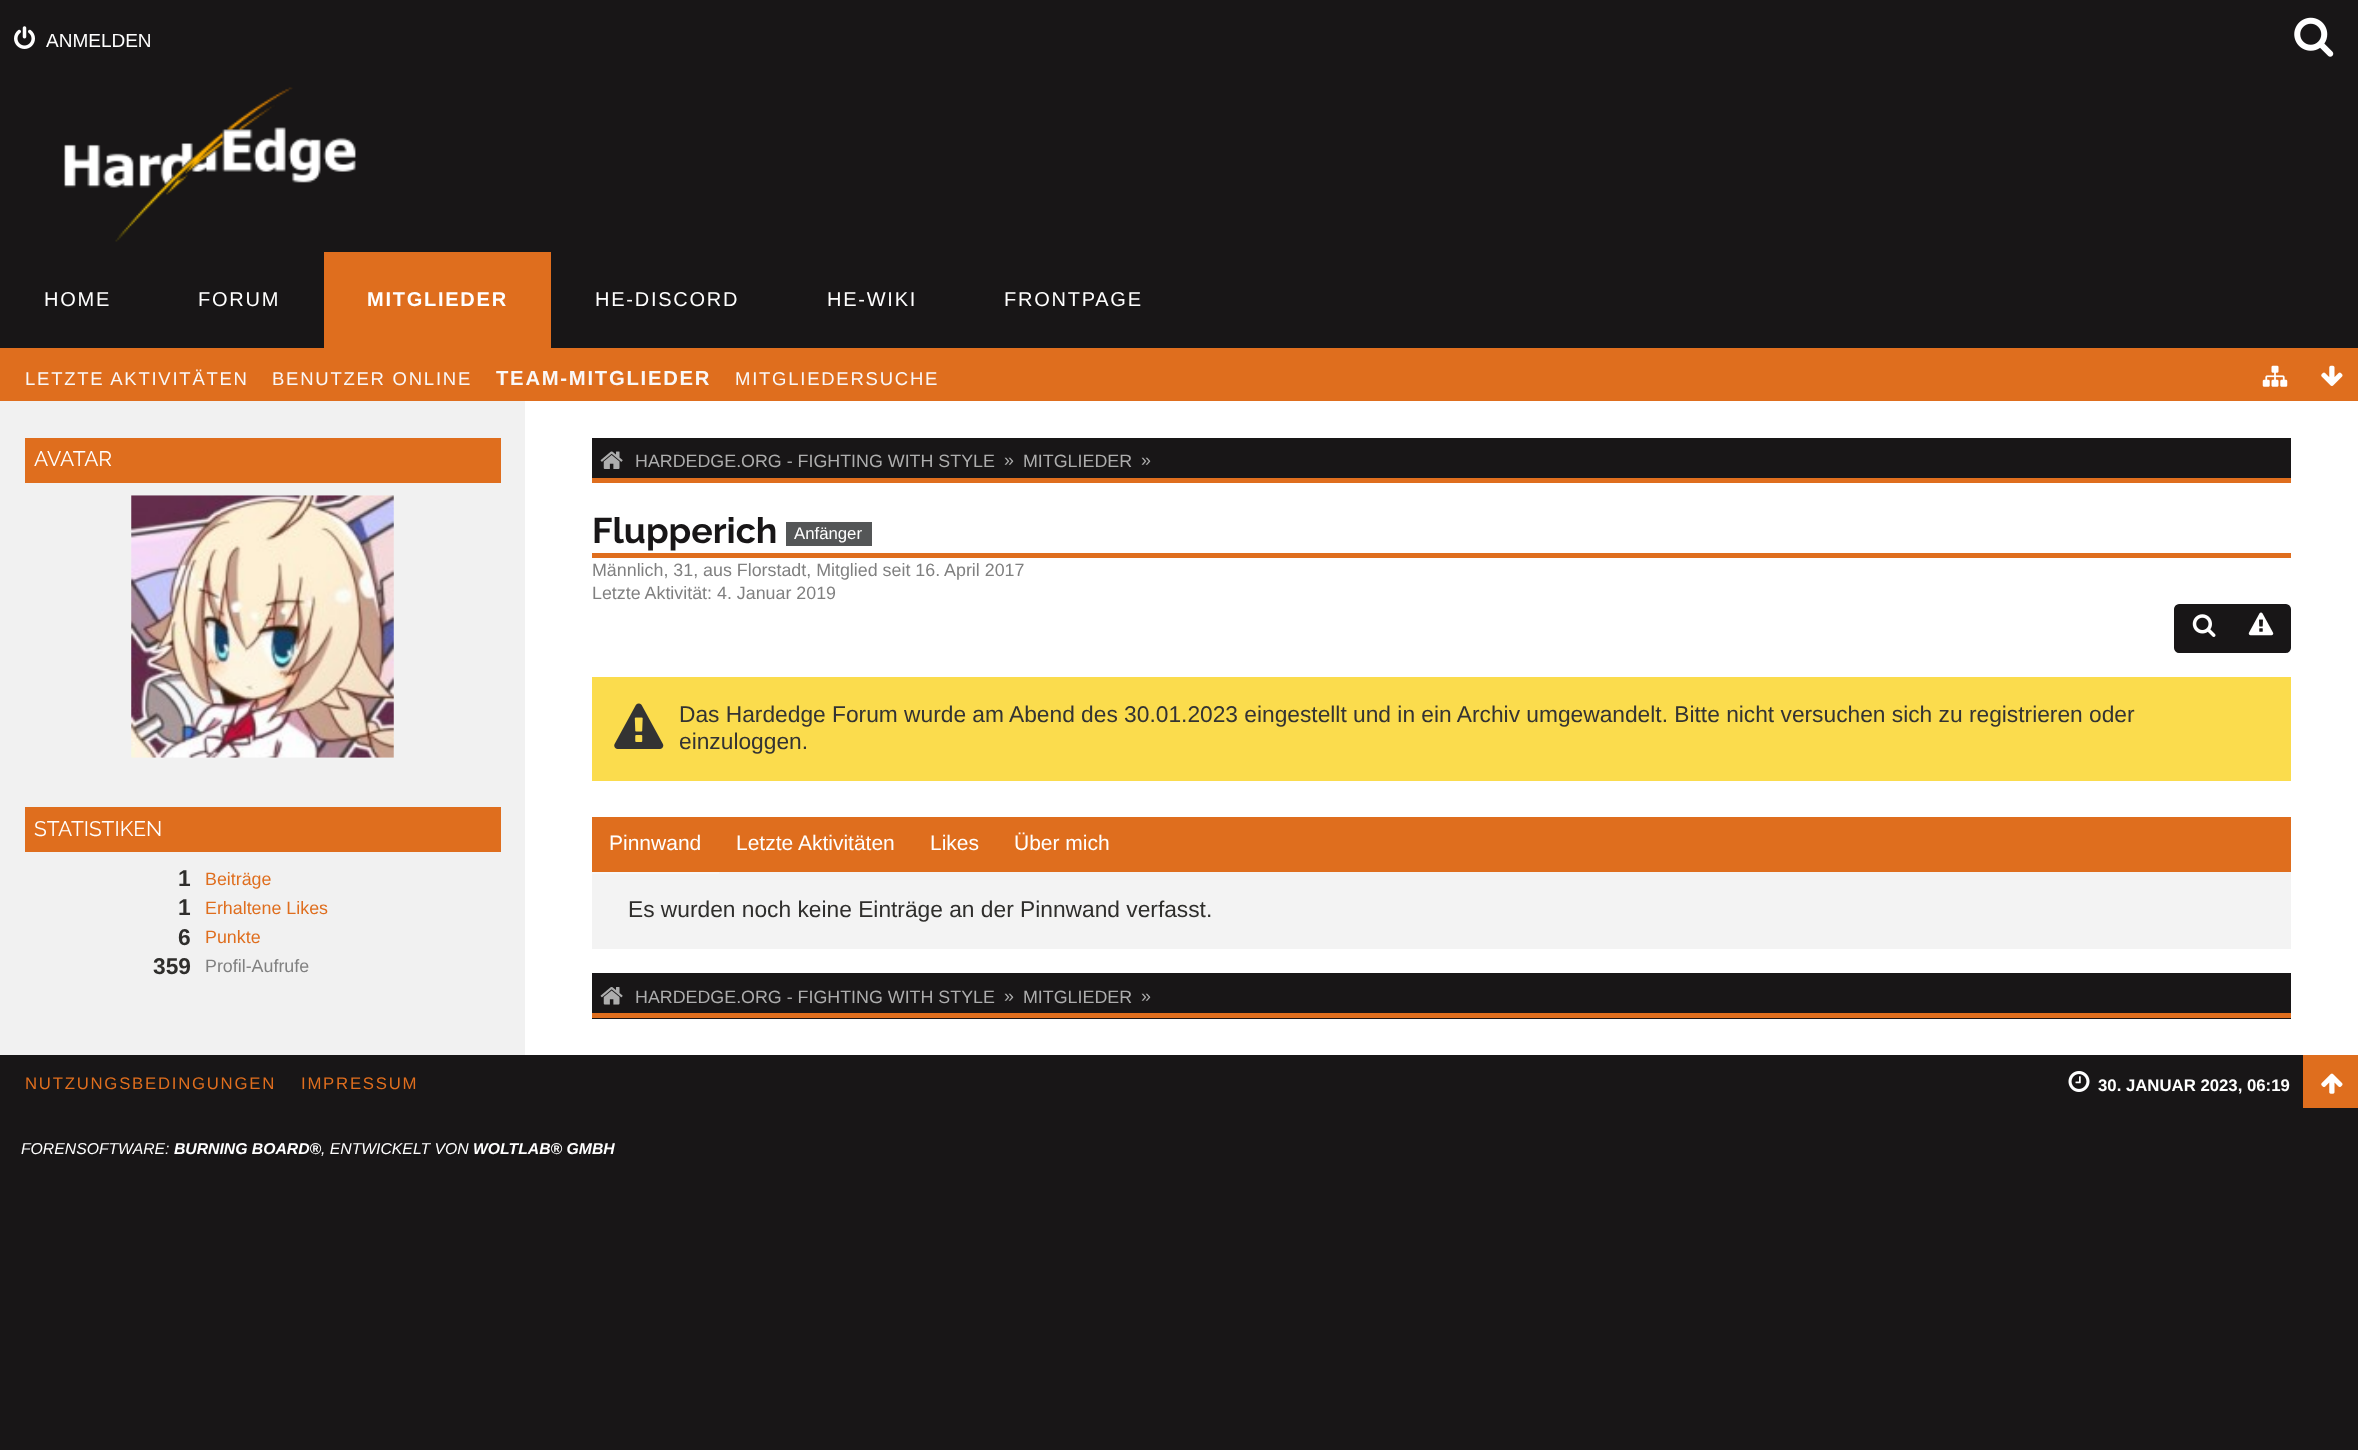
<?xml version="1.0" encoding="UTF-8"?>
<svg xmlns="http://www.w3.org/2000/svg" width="2358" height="1450">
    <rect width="100%" height="100%" fill="#181617"/>
    <image x="14" y="26" width="21" height="23" href="img_01.png"/>
    <text x="46" y="47" font-family="Liberation Sans" font-size="19" fill="#FFFFFF">ANMELDEN</text>
    <image x="2294" y="17" width="40" height="40" href="img_02.png"/>
    <image x="64" y="87" width="292" height="155" href="img_03.png"/>
    <text x="44" y="306" font-family="Liberation Sans" font-size="20" letter-spacing="1.75" fill="#FFFFFF">HOME</text>
    <text x="198" y="306" font-family="Liberation Sans" font-size="20" letter-spacing="1.75" fill="#FFFFFF">FORUM</text>
    <rect x="324" y="252" width="227" height="96" fill="#DF6E1E"/>
    <text x="367" y="306" font-family="Liberation Sans" font-size="20" font-weight="700" letter-spacing="1.75" fill="#FFFFFF">MITGLIEDER</text>
    <text x="595" y="306" font-family="Liberation Sans" font-size="20" letter-spacing="1.75" fill="#FFFFFF">HE-DISCORD</text>
    <text x="827" y="306" font-family="Liberation Sans" font-size="20" letter-spacing="1.75" fill="#FFFFFF">HE-WIKI</text>
    <text x="1004" y="306" font-family="Liberation Sans" font-size="20" letter-spacing="1.75" fill="#FFFFFF">FRONTPAGE</text>
    <rect x="0" y="348" width="2358" height="53" fill="#DF6E1E"/>
    <text x="25" y="385" font-family="Liberation Sans" font-size="18.5" letter-spacing="1.75" fill="#FAF8F8">LETZTE AKTIVITÄTEN</text>
    <text x="272" y="385" font-family="Liberation Sans" font-size="18.5" letter-spacing="1.75" fill="#FAF8F8">BENUTZER ONLINE</text>
    <text x="496" y="385" font-family="Liberation Sans" font-size="20.25" font-weight="700" letter-spacing="1.75" fill="#FAF8F8">TEAM-MITGLIEDER</text>
    <text x="735" y="385" font-family="Liberation Sans" font-size="18.5" letter-spacing="1.75" fill="#FAF8F8">MITGLIEDERSUCHE</text>
    <image x="2262" y="365" width="26" height="22" href="img_04.png"/>
    <image x="2321" y="365" width="22" height="21" href="img_05.png"/>
    <rect x="525" y="401" width="1833" height="654" fill="#FFFFFF"/>
    <rect x="0" y="401" width="525" height="654" fill="#F1F1F1"/>
    <rect x="25" y="438" width="476" height="45" fill="#DF6E1E"/>
    <text x="34" y="466" font-family="Raleway" font-size="21" fill="#FFFFFF">AVATAR</text>
    <image x="131" y="495" width="263" height="263" href="img_06.png"/>
    <rect x="25" y="807" width="476" height="45" fill="#DF6E1E"/>
    <text x="34" y="836" font-family="Raleway" font-size="21" fill="#FFFFFF">STATISTIKEN</text>
    <text x="178" y="886" font-family="Liberation Sans" font-size="22.75" font-weight="700" fill="#2F2E2C">1</text>
    <text x="205" y="885" font-family="Liberation Sans" font-size="17.85" fill="#DF6E1E">Beiträge</text>
    <text x="178" y="915" font-family="Liberation Sans" font-size="22.75" font-weight="700" fill="#2F2E2C">1</text>
    <text x="205" y="914" font-family="Liberation Sans" font-size="17.85" fill="#DF6E1E">Erhaltene Likes</text>
    <text x="178" y="945" font-family="Liberation Sans" font-size="22.75" font-weight="700" fill="#2F2E2C">6</text>
    <text x="205" y="943" font-family="Liberation Sans" font-size="17.85" fill="#DF6E1E">Punkte</text>
    <text x="153" y="974" font-family="Liberation Sans" font-size="22.75" font-weight="700" fill="#2F2E2C">359</text>
    <text x="205" y="972" font-family="Liberation Sans" font-size="17.85" fill="#808080">Profil-Aufrufe</text>
    <rect x="592" y="438" width="1699" height="40" fill="#181617"/>
    <rect x="592" y="478" width="1699" height="5" fill="#DF6E1E"/>
    <image x="600" y="451" width="23" height="18" href="img_07.png"/>
    <text x="635" y="467" font-family="Liberation Sans" font-size="17.85" fill="#ADADAD">HARDEDGE.ORG - FIGHTING WITH STYLE</text>
    <text x="1004" y="466" font-family="Liberation Sans" font-size="17.85" fill="#ADADAD">»</text>
    <text x="1023" y="467" font-family="Liberation Sans" font-size="17.85" fill="#ADADAD">MITGLIEDER</text>
    <text x="1141" y="466" font-family="Liberation Sans" font-size="17.85" fill="#ADADAD">»</text>
    <rect x="592" y="553" width="1699" height="5" fill="#DF6E1E"/>
    <text x="592" y="543" font-family="Raleway" font-size="35.75" font-weight="700" fill="#181617">Flupperich</text>
    <rect x="786" y="522" width="86" height="24" fill="#545657"/>
    <text x="794" y="539" font-family="Liberation Sans" font-size="16.75" fill="#FFFFFF">Anfänger</text>
    <text font-family="Liberation Sans" font-size="17.85" fill="#808080">
        <tspan x="592" y="576">Männlich, 31, aus Florstadt, Mitglied seit 16. April 2017</tspan>
        <tspan x="592" y="599">Letzte Aktivität: 4. Januar 2019</tspan>
    </text>
    <path d="M 2179 605 H 2232 V 652 H 2179 C 2177 652 2175 650 2175 648 V 609 C 2175 607 2177 605 2179 605 Z" fill="#181617" stroke="#181617" stroke-width="2"/>
    <image x="2192" y="614" width="24" height="23" href="img_08.png"/>
    <path d="M 2232 605 H 2286 C 2288 605 2290 607 2290 609 V 648 C 2290 650 2288 652 2286 652 H 2232 Z" fill="#181617" stroke="#181617" stroke-width="2"/>
    <image x="2248" y="612" width="26" height="24" href="img_09.png"/>
    <rect x="592" y="677" width="1699" height="104" fill="#FBDC4D"/>
    <image x="614" y="703" width="50" height="46" href="img_10.png"/>
    <text font-family="Liberation Sans" font-size="22.75" fill="#333333">
        <tspan x="679" y="722">Das Hardedge Forum wurde am Abend des 30.01.2023 eingestellt und in ein Archiv umgewandelt. Bitte nicht versuchen sich zu registrieren oder</tspan>
        <tspan x="679" y="749">einzuloggen.</tspan>
    </text>
    <rect x="592" y="817" width="1699" height="55" fill="#DF6E1E"/>
    <rect x="592" y="872" width="1699" height="77" fill="#F3F3F3"/>
    <rect x="592" y="872" width="127" height="2" fill="#F7F7F7"/>
    <text x="609" y="850" font-family="Liberation Sans" font-size="21" fill="#FFFFFF">Pinnwand</text>
    <text x="736" y="850" font-family="Liberation Sans" font-size="21" fill="#FFFFFF">Letzte Aktivitäten</text>
    <text x="930" y="850" font-family="Liberation Sans" font-size="21" fill="#FFFFFF">Likes</text>
    <text x="1014" y="850" font-family="Liberation Sans" font-size="21" fill="#FFFFFF">Über mich</text>
    <text x="628" y="917" font-family="Liberation Sans" font-size="22.75" fill="#2F2E2C">Es wurden noch keine Einträge an der Pinnwand verfasst.</text>
    <rect x="592" y="973" width="1699" height="46" fill="#181617"/>
    <rect x="592" y="1013" width="1699" height="5" fill="#DF6E1E"/>
    <image x="600" y="987" width="23" height="18" href="img_11.png"/>
    <text x="635" y="1003" font-family="Liberation Sans" font-size="17.85" fill="#ADADAD">HARDEDGE.ORG - FIGHTING WITH STYLE</text>
    <text x="1004" y="1002" font-family="Liberation Sans" font-size="17.85" fill="#ADADAD">»</text>
    <text x="1023" y="1003" font-family="Liberation Sans" font-size="17.85" fill="#ADADAD">MITGLIEDER</text>
    <text x="1141" y="1002" font-family="Liberation Sans" font-size="17.85" fill="#ADADAD">»</text>
    <text x="25" y="1089" font-family="Liberation Sans" font-size="16.75" letter-spacing="1.75" fill="#DF6E1E">NUTZUNGSBEDINGUNGEN</text>
    <text x="301" y="1089" font-family="Liberation Sans" font-size="16.75" letter-spacing="1.75" fill="#DF6E1E">IMPRESSUM</text>
    <image x="2068" y="1071" width="22" height="21" href="img_12.png"/>
    <text x="2098" y="1091" font-family="Liberation Sans" font-size="16.75" font-weight="700" fill="#FFFFFF">30. JANUAR 2023, 06:19</text>
    <rect x="2303" y="1055" width="55" height="53" fill="#DF6E1E"/>
    <image x="2321" y="1073" width="22" height="21" href="img_13.png"/>
    <text x="21" y="1154" font-family="Liberation Sans" font-size="15.75" font-style="italic" fill="#FFFFFF">FORENSOFTWARE:</text>
    <text x="174" y="1154" font-family="Liberation Sans" font-size="15.75" font-weight="700" font-style="italic" fill="#FFFFFF">BURNING BOARD®</text>
    <text x="321" y="1154" font-family="Liberation Sans" font-size="15.75" font-style="italic" fill="#FFFFFF">, ENTWICKELT VON</text>
    <text x="473" y="1154" font-family="Liberation Sans" font-size="15.75" font-weight="700" font-style="italic" fill="#FFFFFF">WOLTLAB® GMBH</text>
</svg>
